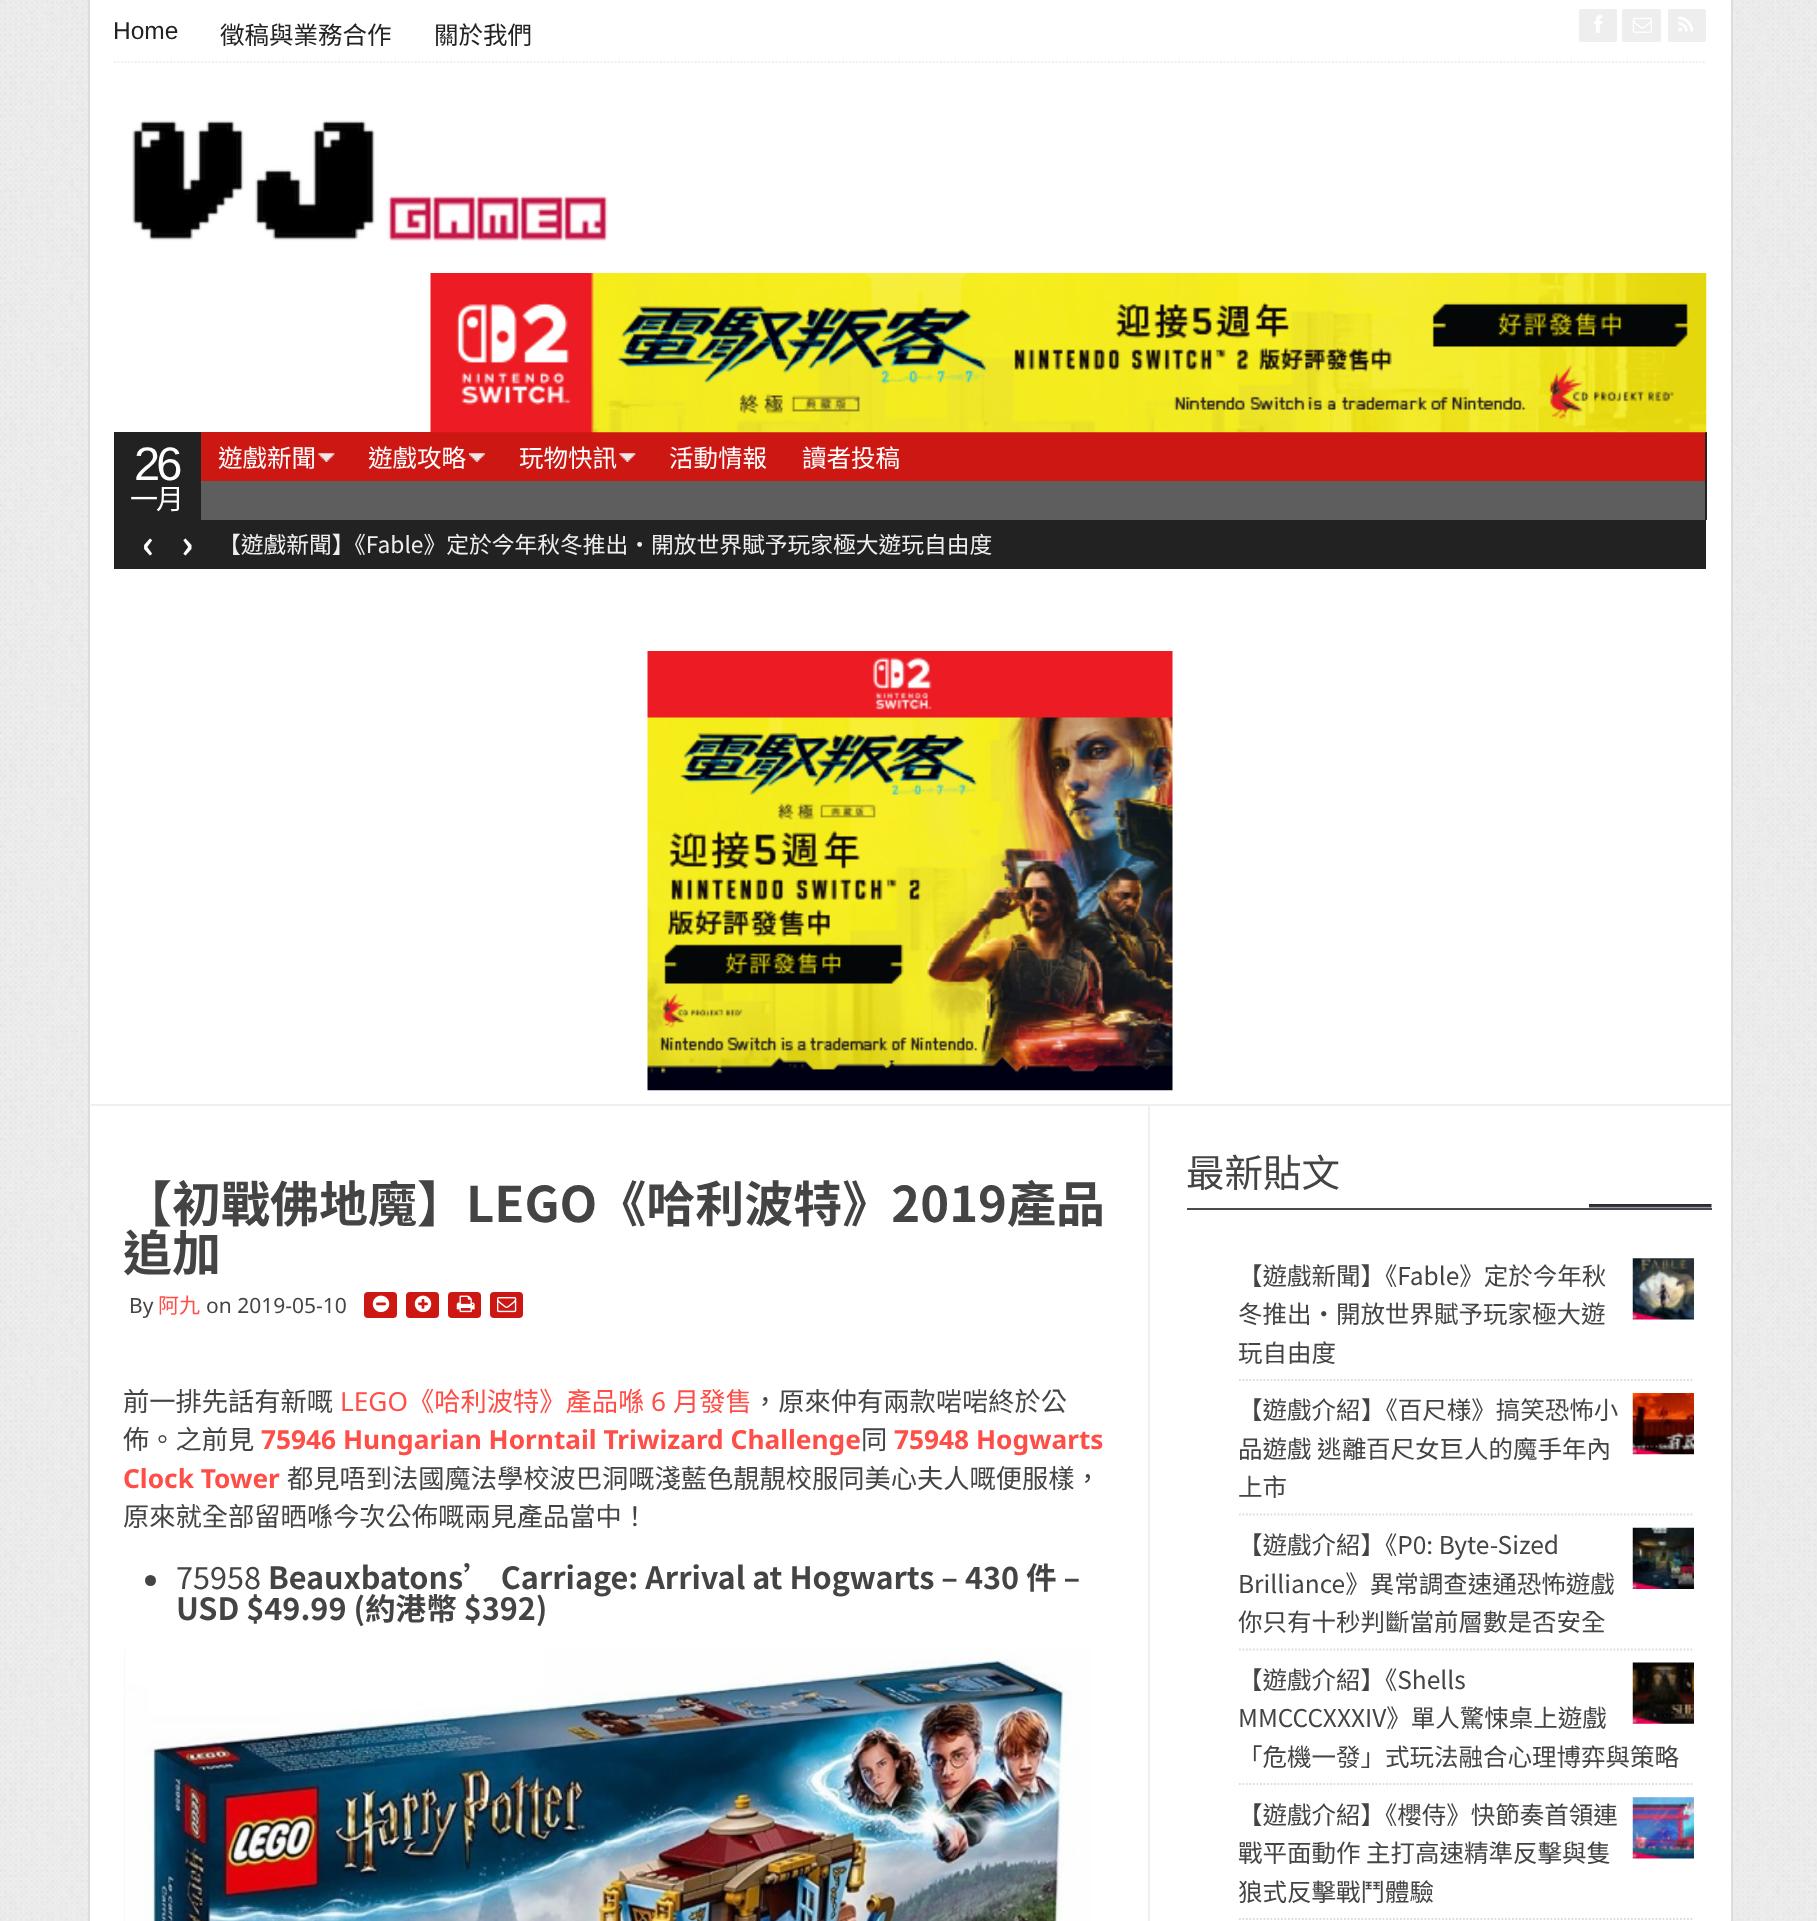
<?xml version="1.0" encoding="UTF-8"?>
<svg xmlns="http://www.w3.org/2000/svg" width="1817" height="1921">
    <rect width="100%" height="100%" fill="#FFFFFF"/>
    <image x="0" y="0" width="1817" height="1921" href="img_01.png"/>
    <rect x="90" y="0" width="1641" height="1921" fill="#FFFFFF"/>
    <rect x="1731" y="0" width="2" height="1921" fill="#DDDDDD"/>
    <rect x="88" y="0" width="2" height="1921" fill="#DDDDDD"/>
    <path d="M 114 62 H 1706" fill="none" stroke="#EEEEEE" stroke-width="1.8" stroke-dasharray="1.75 1.75"/>
    <text x="113" y="39" font-family="Liberation Sans" font-size="24.5" fill="#222222">Home</text>
    <text x="220" y="44" font-family="Noto Sans TC" font-size="24.5" fill="#222222">徵稿與業務合作</text>
    <text x="434" y="44" font-family="Noto Sans TC" font-size="24.5" fill="#222222">關於我們</text>
    <rect x="1579" y="9" width="38" height="33" rx="2" fill="#EEEEEE"/>
    <image x="1594" y="15" width="9" height="18" href="img_02.png"/>
    <rect x="1622" y="9" width="39" height="33" rx="2" fill="#EEEEEE"/>
    <image x="1632" y="17" width="20" height="16" href="img_03.png"/>
    <rect x="1668" y="9" width="38" height="33" rx="2" fill="#EEEEEE"/>
    <image x="1678" y="16" width="16" height="16" href="img_04.png"/>
    <image x="132" y="120" width="476" height="122" href="img_05.png"/>
    <rect x="1705" y="432" width="2" height="88" fill="#222222"/>
    <rect x="201" y="432" width="1504" height="49" fill="#CD1713"/>
    <image x="430" y="273" width="1277" height="160" href="img_06.png"/>
    <rect x="114" y="432" width="87" height="88" fill="#222222"/>
    <text x="134" y="480" font-family="Liberation Sans" font-size="47" letter-spacing="-4" fill="#FFFFFF">26</text>
    <text x="130" y="509" font-family="Noto Sans CJK TC" font-size="28" letter-spacing="-2" fill="#FFFFFF">一月</text>
    <image x="318" y="453" width="17" height="9" href="img_07.png"/>
    <text x="218" y="467" font-family="Noto Sans TC" font-size="24.5" fill="#FFFFFF">遊戲新聞</text>
    <image x="469" y="453" width="16" height="9" href="img_08.png"/>
    <text x="368" y="467" font-family="Noto Sans TC" font-size="24.5" fill="#FFFFFF">遊戲攻略</text>
    <image x="619" y="453" width="17" height="9" href="img_07.png"/>
    <text x="519" y="467" font-family="Noto Sans TC" font-size="24.5" fill="#FFFFFF">玩物快訊</text>
    <text x="669" y="467" font-family="Noto Sans TC" font-size="24.5" fill="#FFFFFF">活動情報</text>
    <text x="802" y="467" font-family="Noto Sans TC" font-size="24.5" fill="#FFFFFF">讀者投稿</text>
    <rect x="201" y="481" width="1504" height="39" fill="#5E5E5E"/>
    <rect x="114" y="520" width="1592" height="49" fill="#222222"/>
    <text x="142" y="558" font-family="Noto Sans TC" font-size="38.5" font-weight="700" fill="#FFFFFF">‹</text>
    <text x="181" y="558" font-family="Noto Sans TC" font-size="38.5" font-weight="700" fill="#FFFFFF">›</text>
    <text x="218" y="553" font-family="Noto Sans TC" font-size="22.75" fill="#EFEFEF">【遊戲新聞】《Fable》定於今年秋冬推出・開放世界賦予玩家極大遊玩自由度</text>
    <image x="647" y="651" width="526" height="440" href="img_09.png"/>
    <rect x="89" y="1104" width="1642" height="2" fill="#EFEFEF"/>
    <rect x="1148" y="1106" width="2" height="815" fill="#EFEFEF"/>
    <text font-family="Noto Sans TC" font-size="49" font-weight="700" fill="#444444">
        <tspan x="123" y="1222">【初戰佛地魔】LEGO《哈利波特》2019產品</tspan>
        <tspan x="123" y="1271">追加</tspan>
    </text>
    <text x="129" y="1313" font-family="Noto Sans" font-size="21" fill="#444444">By</text>
    <text x="158" y="1313" font-family="Noto Sans CJK TC" font-size="21" fill="#FE4E47">阿九</text>
    <text x="206" y="1313" font-family="Noto Sans" font-size="21" fill="#444444">on 2019-05-10</text>
    <rect x="364" y="1292" width="33" height="26" rx="4" fill="#CD1713"/>
    <image x="372" y="1295" width="18" height="18" href="img_10.png"/>
    <rect x="406" y="1292" width="33" height="26" rx="4" fill="#CD1713"/>
    <image x="414" y="1295" width="18" height="18" href="img_11.png"/>
    <rect x="448" y="1292" width="33" height="26" rx="4" fill="#CD1713"/>
    <image x="456" y="1295" width="19" height="18" href="img_12.png"/>
    <rect x="490" y="1292" width="33" height="26" rx="4" fill="#CD1713"/>
    <image x="497" y="1297" width="20" height="16" href="img_13.png"/>
    <text x="123" y="1411" font-family="Noto Sans CJK TC" font-size="26.25" fill="#444444">前一排先話有新嘅</text>
    <text x="340" y="1411" font-family="Noto Sans" font-size="26.25" fill="#FE4E47">LEGO</text>
    <text x="408" y="1411" font-family="Noto Sans CJK TC" font-size="26.25" fill="#FE4E47">《哈利波特》產品喺</text>
    <text x="651" y="1411" font-family="Noto Sans" font-size="26.25" fill="#FE4E47">6</text>
    <text x="673" y="1411" font-family="Noto Sans CJK TC" font-size="26.25" fill="#FE4E47">月發售</text>
    <text x="752" y="1411" font-family="Noto Sans CJK TC" font-size="26.25" fill="#444444">，原來仲有兩款啱啱終於公</text>
    <text x="123" y="1449" font-family="Noto Sans CJK TC" font-size="26.25" fill="#444444">佈。之前見</text>
    <text x="261" y="1449" font-family="Noto Sans" font-size="26.25" font-weight="700" fill="#FE4E47">75946 Hungarian Horntail Triwizard Challenge</text>
    <text x="861" y="1449" font-family="Noto Sans CJK TC" font-size="26.25" fill="#444444">同</text>
    <text x="894" y="1449" font-family="Noto Sans" font-size="26.25" font-weight="700" fill="#FE4E47">75948 Hogwarts</text>
    <text x="123" y="1488" font-family="Noto Sans" font-size="26.25" font-weight="700" fill="#FE4E47">Clock Tower</text>
    <text x="287" y="1488" font-family="Noto Sans CJK TC" font-size="26.25" fill="#444444">都見唔到法國魔法學校波巴洞嘅淺藍色靚靚校服同美心夫人嘅便服樣，</text>
    <text x="123" y="1526" font-family="Noto Sans CJK TC" font-size="26.25" fill="#444444">原來就全部留晒喺今次公佈嘅兩見產品當中！</text>
    <circle cx="150.5" cy="1580.5" r="5.5" fill="#444444"/>
    <text x="176" y="1589" font-family="Noto Sans TC" font-size="30.6" fill="#444444">75958</text>
    <text x="268" y="1589" font-family="Noto Sans TC" font-size="30.6" font-weight="700" fill="#444444">Beauxbatons’ Carriage: Arrival at Hogwarts – 430 件 –</text>
    <text x="176" y="1620" font-family="Noto Sans TC" font-size="30.6" font-weight="700" fill="#444444">USD $49.99 (約港幣 $392)</text>
    <rect x="124" y="1649" width="1" height="272" fill="#F1F1F1"/>
    <image x="124" y="1649" width="968" height="272" href="img_14.png"/>
    <image x="1589" y="1204" width="123" height="4" href="img_15.png"/>
    <rect x="1187" y="1208" width="525" height="2" fill="#4A4A4A"/>
    <text x="1186" y="1187" font-family="Noto Sans TC" font-size="38.5" fill="#444444">最新貼文</text>
    <path d="M 1239 1380 H 1694" fill="none" stroke="#DDDDDD" stroke-width="1.8" stroke-dasharray="1.75 1.75"/>
    <text x="1238" y="1285" font-family="Noto Sans TC" font-size="24.5" fill="#444444">【遊戲新聞】《Fable》定於今年秋</text>
    <image x="1632" y="1258" width="62" height="62" href="img_16.png"/>
    <text font-family="Noto Sans TC" font-size="24.5" fill="#444444">
        <tspan x="1238" y="1323">冬推出・開放世界賦予玩家極大遊</tspan>
        <tspan x="1238" y="1362">玩自由度</tspan>
    </text>
    <path d="M 1239 1514.5 H 1694" fill="none" stroke="#DDDDDD" stroke-width="1.8" stroke-dasharray="1.75 1.75"/>
    <text x="1238" y="1419" font-family="Noto Sans CJK TC" font-size="24.5" fill="#444444">【遊戲介</text>
    <text x="1336" y="1419" font-family="Noto Sans TC" font-size="24.5" fill="#444444">紹</text>
    <text x="1361" y="1419" font-family="Noto Sans CJK TC" font-size="24.5" fill="#444444">】《百尺様》搞笑恐怖小</text>
    <image x="1632" y="1393" width="62" height="62" href="img_17.png"/>
    <text x="1238" y="1458" font-family="Noto Sans CJK TC" font-size="24.5" fill="#444444">品遊戲 逃</text>
    <text x="1342" y="1458" font-family="Noto Sans TC" font-size="24.5" fill="#444444">離</text>
    <text x="1366" y="1458" font-family="Noto Sans CJK TC" font-size="24.5" fill="#444444">百尺女巨人的魔手年內</text>
    <text x="1238" y="1496" font-family="Noto Sans CJK TC" font-size="24.5" fill="#444444">上市</text>
    <path d="M 1239 1649.5 H 1694" fill="none" stroke="#DDDDDD" stroke-width="1.8" stroke-dasharray="1.75 1.75"/>
    <text x="1238" y="1554" font-family="Noto Sans TC" font-size="24.5" fill="#444444">【遊戲介紹】《P0: Byte-Sized</text>
    <image x="1632" y="1527" width="62" height="62" href="img_18.png"/>
    <text font-family="Noto Sans TC" font-size="24.5" fill="#444444">
        <tspan x="1238" y="1593">Brilliance》異常調查速通恐怖遊戲</tspan>
        <tspan x="1238" y="1631">你只有十秒判斷當前層數是否安全</tspan>
    </text>
    <path d="M 1239 1784 H 1694" fill="none" stroke="#DDDDDD" stroke-width="1.8" stroke-dasharray="1.75 1.75"/>
    <text x="1238" y="1689" font-family="Noto Sans TC" font-size="24.5" fill="#444444">【遊戲介紹】《Shells</text>
    <image x="1632" y="1662" width="62" height="62" href="img_19.png"/>
    <text font-family="Noto Sans TC" font-size="24.5" fill="#444444">
        <tspan x="1238" y="1727">MMCCCXXXIV》單人驚悚桌上遊戲</tspan>
        <tspan x="1238" y="1766">「危機一發」式玩法融合心理博弈與策略</tspan>
    </text>
    <path d="M 1239 1919 H 1694" fill="none" stroke="#DDDDDD" stroke-width="1.8" stroke-dasharray="1.75 1.75"/>
    <text x="1238" y="1824" font-family="Noto Sans TC" font-size="24.5" fill="#444444">【遊戲介紹】《櫻侍》快節奏首領連</text>
    <image x="1632" y="1797" width="62" height="62" href="img_20.png"/>
    <text font-family="Noto Sans TC" font-size="24.5" fill="#444444">
        <tspan x="1238" y="1862">戰平面動作 主打高速精準反擊與隻</tspan>
        <tspan x="1238" y="1901">狼式反擊戰鬥體驗</tspan>
    </text>
</svg>
